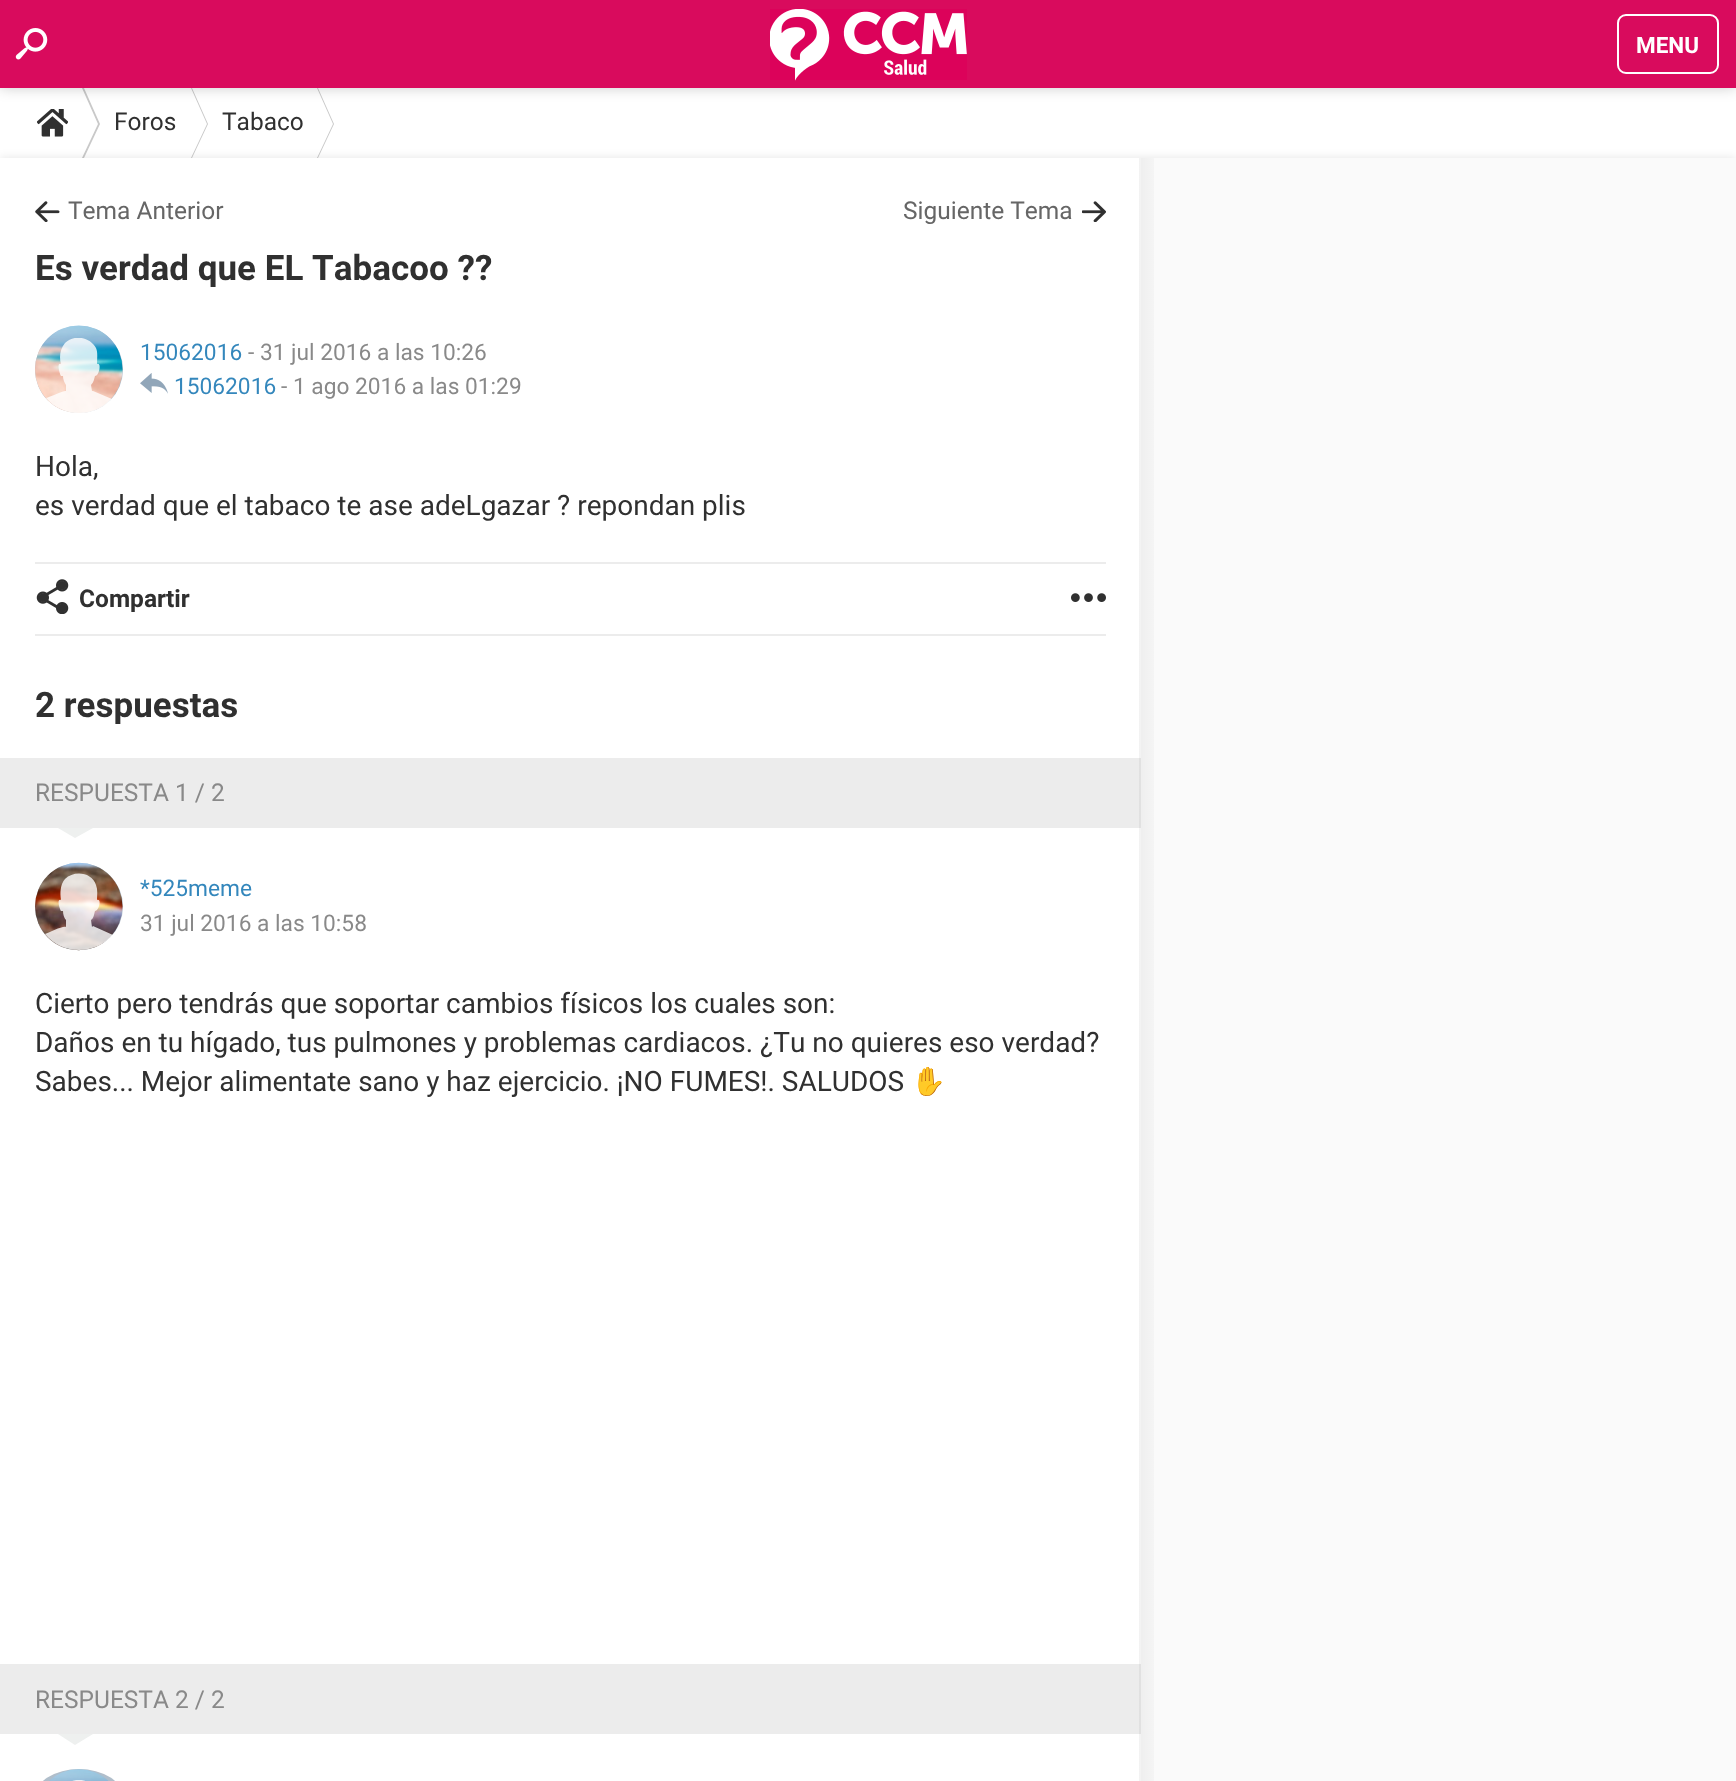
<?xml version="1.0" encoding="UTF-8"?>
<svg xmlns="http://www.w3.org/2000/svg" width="1736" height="1781">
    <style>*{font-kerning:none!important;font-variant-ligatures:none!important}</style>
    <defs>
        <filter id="blur1" x="-50%" y="-200%" width="200%" height="500%"><feGaussianBlur stdDeviation="7"/></filter>
        <filter id="blur2" x="-50%" y="-200%" width="200%" height="500%"><feGaussianBlur stdDeviation="5"/></filter>
        <clipPath id="clip1"><rect x="44" y="338" width="70" height="77"/></clipPath>
        <linearGradient id="g1" gradientUnits="userSpaceOnUse" x1="1139" y1="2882" x2="1166" y2="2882"><stop offset="0" stop-color="#000000" stop-opacity="0.05"/><stop offset="1" stop-color="#000000" stop-opacity="0"/></linearGradient>
    </defs>
    <rect width="100%" height="100%" fill="#FFFFFF"/>
    <image x="37" y="109" width="31" height="28" href="img_03.png"/>
    <path d="M 82 88 H 84 L 100 124 L 84 158 H 82 L 98 124 Z" fill="#C9C9C9" fill-rule="evenodd"/>
    <path d="M 191 88 H 192 L 208 124 L 192 158 H 191 L 207 124 Z" fill="#C9C9C9" fill-rule="evenodd"/>
    <path d="M 317 88 H 318 L 334 124 L 318 158 H 317 L 333 124 Z" fill="#C9C9C9" fill-rule="evenodd"/>
    <rect x="0" y="0" width="1736" height="88" fill="#000000" fill-opacity="0.2" filter="url(#blur1)"/>
    <rect x="0" y="0" width="1736" height="88" fill="#D90B5D"/>
    <image x="15" y="28" width="33" height="32" href="img_01.png"/>
    <image x="770" y="9" width="197" height="72" href="img_02.png"/>
    <rect x="1618" y="15" width="100" height="58" rx="8" fill="none" stroke="#FFFFFF" stroke-width="2"/>
    <text x="1636" y="53" font-family="Roboto" font-size="22.5" font-weight="700" fill="#FFFFFF">MENU</text>
    <text x="114" y="130" font-family="Roboto" font-size="24.5" fill="#303030">Foros</text>
    <text x="222" y="130" font-family="Roboto" font-size="24.5" fill="#303030">Tabaco</text>
    <rect x="0" y="158" width="1736" height="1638" fill="#000000" fill-opacity="0.1" filter="url(#blur2)"/>
    <rect x="0" y="158" width="1141" height="1623" fill="#FFFFFF"/>
    <image x="35" y="201" width="25" height="21" href="img_04.png"/>
    <text x="68" y="219" font-family="Roboto" font-size="24.5" fill="#666666">Tema Anterior</text>
    <text x="903" y="219" font-family="Roboto" font-size="24.5" fill="#666666">Siguiente Tema</text>
    <image x="1082" y="201" width="24" height="21" href="img_05.png"/>
    <text x="35" y="280" font-family="Roboto" font-size="35" font-weight="700" fill="#303030">Es verdad que EL Tabacoo ??</text>
    <rect x="35" y="326" width="88" height="87" rx="43.5" fill="#B0BECB"/>
    <image x="35" y="325" width="88" height="88" href="img_06.png"/>
    <g clip-path="url(#clip1)">
        <path d="M 93 391 L 112 399 C 95 418 63 418 46 398 C 50 397 64 390 66 391 V 385 C 64 382 63 379 63 376 H 61 C 60 375 56 362 61 364 C 59 357 60 349 65 343 C 74 334 90 337 96 348 C 98 352 97 359 97 364 C 102 362 99 376 95 376 C 94 379 94 382 91 385 L 92 391 Z" fill="#FFFFFF" fill-opacity="0.8"/>
    </g>
    <text x="140" y="360" font-family="Roboto" font-size="22.75" fill="#3487BC">15062016</text>
    <text x="248" y="360" font-family="Roboto" font-size="22.75" fill="#898989">- 31 jul 2016 a las 10:26</text>
    <image x="140" y="373" width="28" height="21" href="img_07.png"/>
    <text x="174" y="394" font-family="Roboto" font-size="22.75" fill="#3487BC">15062016</text>
    <text x="281" y="394" font-family="Roboto" font-size="22.75" fill="#898989">- 1 ago 2016 a las 01:29</text>
    <text font-family="Roboto" font-size="28" fill="#303030">
        <tspan x="35" y="476">Hola,</tspan>
        <tspan x="35" y="515">es verdad que el tabaco te ase adeLgazar ? repondan plis</tspan>
    </text>
    <rect x="35" y="562" width="1071" height="2" fill="#ECECEC"/>
    <rect x="35" y="634" width="1071" height="2" fill="#ECECEC"/>
    <image x="36" y="579" width="33" height="35" href="img_08.png"/>
    <text x="79" y="607" font-family="Roboto" font-size="24.5" font-weight="700" fill="#303030">Compartir</text>
    <image x="1071" y="593" width="35" height="9" href="img_09.png"/>
    <text x="35" y="717" font-family="Roboto" font-size="35" font-weight="700" fill="#303030">2 respuestas</text>
    <rect x="0" y="758" width="1141" height="70" fill="#ECECEC"/>
    <text x="35" y="801" font-family="Roboto" font-size="24.5" fill="#898989">RESPUESTA 1 / 2</text>
    <path d="M 58 828 H 93 L 75 838 Z" fill="#EEF0EF"/>
    <rect x="35" y="863" width="88" height="87" rx="43.5" fill="#B0BECB"/>
    <image x="35" y="862" width="88" height="89" href="img_10.png"/>
    <path d="M 93 926 L 113 935 C 95 955 62 955 45 934 C 50 932 64 925 66 927 V 920 C 64 918 63 914 63 911 H 61 C 60 910 56 898 61 900 C 60 893 60 885 65 879 C 74 870 92 872 96 885 C 98 890 97 895 97 900 C 102 898 99 911 95 911 C 94 914 94 918 91 920 L 92 927 Z" fill="#FFFFFF" fill-opacity="0.8"/>
    <text x="140" y="896" font-family="Roboto" font-size="22.75" fill="#3487BC">*525meme</text>
    <text x="140" y="931" font-family="Roboto" font-size="22.75" fill="#898989">31 jul 2016 a las 10:58</text>
    <text font-family="Roboto" font-size="28" fill="#303030">
        <tspan x="35" y="1013">Cierto pero tendrás que soportar cambios físicos los cuales son:</tspan>
        <tspan x="35" y="1052">Daños en tu hígado, tus pulmones y problemas cardiacos. ¿Tu no quieres eso verdad?</tspan>
        <tspan x="35" y="1091">Sabes... Mejor alimentate sano y haz ejercicio. ¡NO FUMES!. SALUDOS</tspan>
    </text>
    <text x="911" y="1091" font-family="Noto Color Emoji" font-size="28" fill="#303030">✋</text>
    <rect x="0" y="1664" width="1141" height="70" fill="#ECECEC"/>
    <text x="35" y="1708" font-family="Roboto" font-size="24.5" fill="#898989">RESPUESTA 2 / 2</text>
    <path d="M 58 1734 H 93 L 75 1745 Z" fill="#EEF0EF"/>
    <rect x="35" y="1769" width="88" height="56" rx="44" fill="#B0BECB"/>
    <image x="49" y="1769" width="60" height="12" href="img_11.png"/>
    <image x="72" y="1780" width="13" height="1" href="img_12.png"/>
    <rect x="1141" y="158" width="595" height="1623" fill="#FAFAFA"/>
    <rect x="1139" y="158" width="15" height="1623" fill="url(#g1)"/>
</svg>
